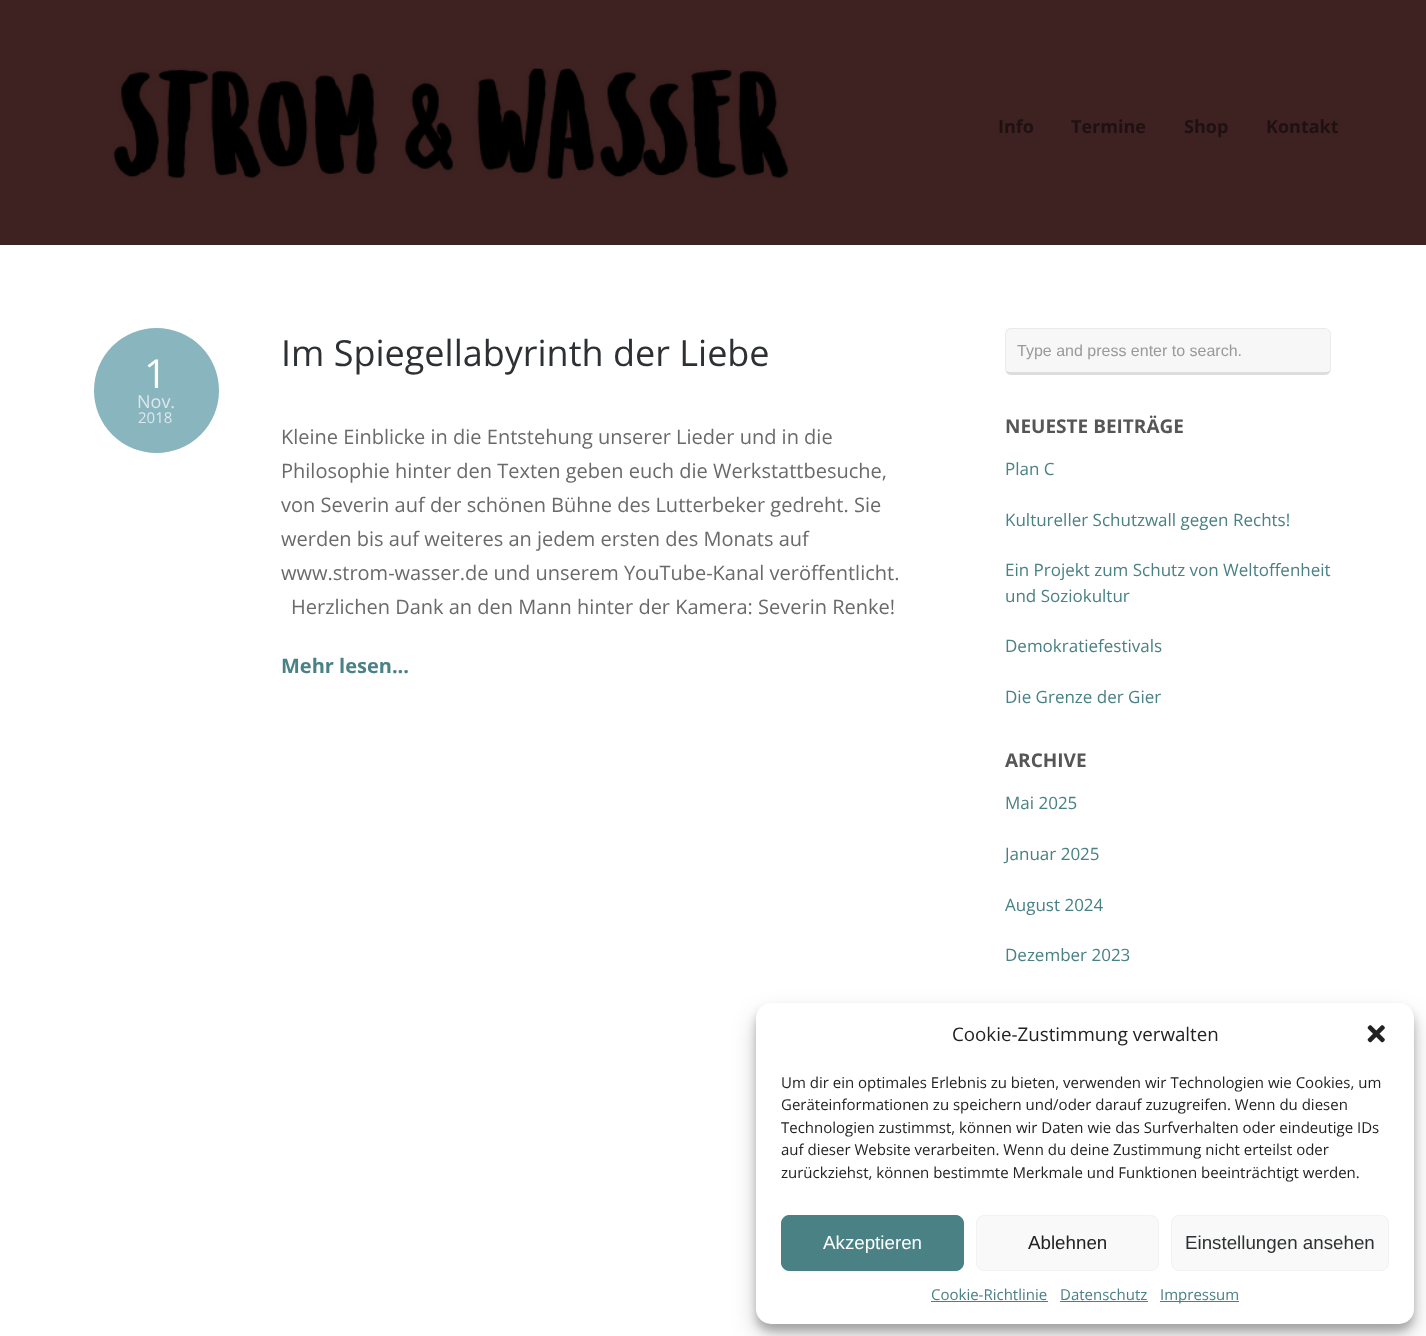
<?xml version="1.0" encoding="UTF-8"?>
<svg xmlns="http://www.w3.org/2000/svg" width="1426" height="1336">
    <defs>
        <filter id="blur1" x="-50%" y="-200%" width="200%" height="500%"><feGaussianBlur stdDeviation="4"/></filter>
        <filter id="blur2" x="-50%" y="-200%" width="200%" height="500%"><feGaussianBlur stdDeviation="12.5"/></filter>
    </defs>
    <rect width="100%" height="100%" fill="#FFFFFF"/>
    <rect x="0" y="0" width="1426" height="245" fill="#3E2221"/>
    <image x="113" y="68" width="676" height="111" href="img_01.png"/>
    <text x="998" y="133" font-family="Open Sans" font-size="18" font-weight="700" fill="#1F1111">Info</text>
    <text x="1071" y="133" font-family="Open Sans" font-size="18" font-weight="700" fill="#1F1111">Termine</text>
    <text x="1184" y="133" font-family="Open Sans" font-size="18" font-weight="700" fill="#1F1111">Shop</text>
    <text x="1266" y="133" font-family="Open Sans" font-size="18" font-weight="700" fill="#1F1111">Kontakt</text>
    <circle cx="156.5" cy="390.5" r="62.5" fill="#89B5BE"/>
    <text x="144" y="388" font-family="Open Sans" font-size="40" fill="#FFFFFF">1</text>
    <text x="137" y="408" font-family="Open Sans" font-size="18" fill="#DCE9EC">Nov.</text>
    <text x="138" y="423" font-family="Open Sans" font-size="15" fill="#DCE9EC">2018</text>
    <text x="281" y="366" font-family="Open Sans" font-size="36" fill="#2E3133">Im Spiegellabyrinth der Liebe</text>
    <text font-family="Open Sans" font-size="20" fill="#6A6A6A">
        <tspan x="281" y="444">Kleine Einblicke in die Entstehung unserer Lieder und in die</tspan>
        <tspan x="281" y="478">Philosophie hinter den Texten geben euch die Werkstattbesuche,</tspan>
        <tspan x="281" y="512">von Severin auf der schönen Bühne des Lutterbeker gedreht. Sie</tspan>
        <tspan x="281" y="546">werden bis auf weiteres an jedem ersten des Monats auf</tspan>
        <tspan x="281" y="580">www.strom-wasser.de und unserem YouTube-Kanal veröffentlicht.</tspan>
    </text>
    <text x="291" y="614" font-family="Open Sans" font-size="20" fill="#6A6A6A">Herzlichen Dank an den Mann hinter der Kamera: Severin Renke!</text>
    <text x="281" y="673" font-family="Open Sans" font-size="20" font-weight="700" fill="#4A8184">Mehr lesen...</text>
    <rect x="1005" y="328" width="326" height="47" rx="6" fill="#F7F7F7"/>
    <path d="M 1011 328 C 1010 328 1008 328 1007 329 L 1008 330 L 1011 329 H 1325 C 1326 329 1328 329 1328 330 H 1329 C 1328 329 1327 328 1325 328 Z" fill="#000000" fill-opacity="0.05"/>
    <path d="M 1330 372 C 1331 371 1331 370 1331 369 V 334 C 1331 332 1330 331 1329 330 H 1328 C 1329 331 1330 332 1330 334 V 369 L 1329 371 Z" fill="#EBEBEB"/>
    <path d="M 1011 375 H 1325 C 1327 375 1329 374 1330 372 L 1329 371 C 1328 372 1327 372 1325 372 H 1011 C 1009 372 1008 372 1007 371 L 1006 372 C 1007 374 1009 375 1011 375 Z" fill="#000000" fill-opacity="0.1"/>
    <path d="M 1005 334 V 369 C 1005 370 1005 371 1006 372 L 1007 371 C 1006 371 1006 370 1006 369 V 334 C 1006 332 1007 331 1008 330 L 1007 329 C 1006 330 1005 332 1005 334 Z" fill="#000000" fill-opacity="0.05"/>
    <text x="1017" y="356" font-family="Liberation Sans" font-size="16" fill="#9A9A9A">Type and press enter to search.</text>
    <text x="1005" y="433" font-family="Open Sans" font-size="19" font-weight="700" fill="#565656">NEUESTE BEITRÄGE</text>
    <text x="1005" y="475" font-family="Open Sans" font-size="17" fill="#4A8184">Plan C</text>
    <text x="1005" y="526" font-family="Open Sans" font-size="17" fill="#4A8184">Kultureller Schutzwall gegen Rechts!</text>
    <text font-family="Open Sans" font-size="17" fill="#4A8184">
        <tspan x="1005" y="576">Ein Projekt zum Schutz von Weltoffenheit</tspan>
        <tspan x="1005" y="602">und Soziokultur</tspan>
    </text>
    <text x="1005" y="652" font-family="Open Sans" font-size="17" fill="#4A8184">Demokratiefestivals</text>
    <text x="1005" y="703" font-family="Open Sans" font-size="17" fill="#4A8184">Die Grenze der Gier</text>
    <text x="1005" y="767" font-family="Open Sans" font-size="19" font-weight="700" fill="#565656">ARCHIVE</text>
    <text x="1005" y="809" font-family="Open Sans" font-size="17" fill="#4A8184">Mai 2025</text>
    <text x="1005" y="860" font-family="Open Sans" font-size="17" fill="#4A8184">Januar 2025</text>
    <text x="1005" y="911" font-family="Open Sans" font-size="17" fill="#4A8184">August 2024</text>
    <text x="1005" y="961" font-family="Open Sans" font-size="17" fill="#4A8184">Dezember 2023</text>
    <rect x="756" y="1010" width="658" height="321" rx="15" fill="#000000" fill-opacity="0.23" filter="url(#blur1)"/>
    <rect x="756" y="1015" width="658" height="321" rx="15" fill="#000000" fill-opacity="0.19" filter="url(#blur2)"/>
    <rect x="756" y="1003" width="658" height="321" rx="15" fill="#FFFFFF"/>
    <text x="952" y="1041" font-family="Open Sans" font-size="18.75" fill="#222222">Cookie-Zustimmung verwalten</text>
    <image x="1367" y="1025" width="18" height="18" href="img_02.png"/>
    <text font-family="Open Sans" font-size="15" fill="#222222">
        <tspan x="781" y="1088">Um dir ein optimales Erlebnis zu bieten, verwenden wir Technologien wie Cookies, um</tspan>
        <tspan x="781" y="1110">Geräteinformationen zu speichern und/oder darauf zuzugreifen. Wenn du diesen</tspan>
        <tspan x="781" y="1133">Technologien zustimmst, können wir Daten wie das Surfverhalten oder eindeutige IDs</tspan>
        <tspan x="781" y="1155">auf dieser Website verarbeiten. Wenn du deine Zustimmung nicht erteilst oder</tspan>
        <tspan x="781" y="1178">zurückziehst, können bestimmte Merkmale und Funktionen beeinträchtigt werden.</tspan>
    </text>
    <rect x="781.5" y="1215.5" width="182" height="55" rx="7.5" fill="#4A8184" stroke="#4A8184"/>
    <text x="823" y="1249" font-family="Liberation Sans" font-size="18.75" fill="#FFFFFF">Akzeptieren</text>
    <rect x="976.5" y="1215.5" width="182" height="55" rx="7.5" fill="#F9F9F9" stroke="#F2F2F2"/>
    <text x="1028" y="1249" font-family="Liberation Sans" font-size="18.75" fill="#222222">Ablehnen</text>
    <rect x="1171.5" y="1215.5" width="217" height="55" rx="7.5" fill="#F9F9F9" stroke="#F2F2F2"/>
    <text x="1185" y="1249" font-family="Liberation Sans" font-size="18.75" fill="#2E3133">Einstellungen ansehen</text>
    <text x="931" y="1300" font-family="Open Sans" font-size="15" fill="#4A8184">Cookie-Richtlinie</text>
    <rect x="931" y="1301" width="117" height="1" fill="#4A8184"/>
    <text x="1060" y="1300" font-family="Open Sans" font-size="15" fill="#4A8184">Datenschutz</text>
    <rect x="1060" y="1301" width="88" height="1" fill="#4A8184"/>
    <rect x="1160" y="1301" width="79" height="1" fill="#4A8184"/>
    <text x="1160" y="1300" font-family="Open Sans" font-size="15" fill="#4A8184">Impressum</text>
</svg>
